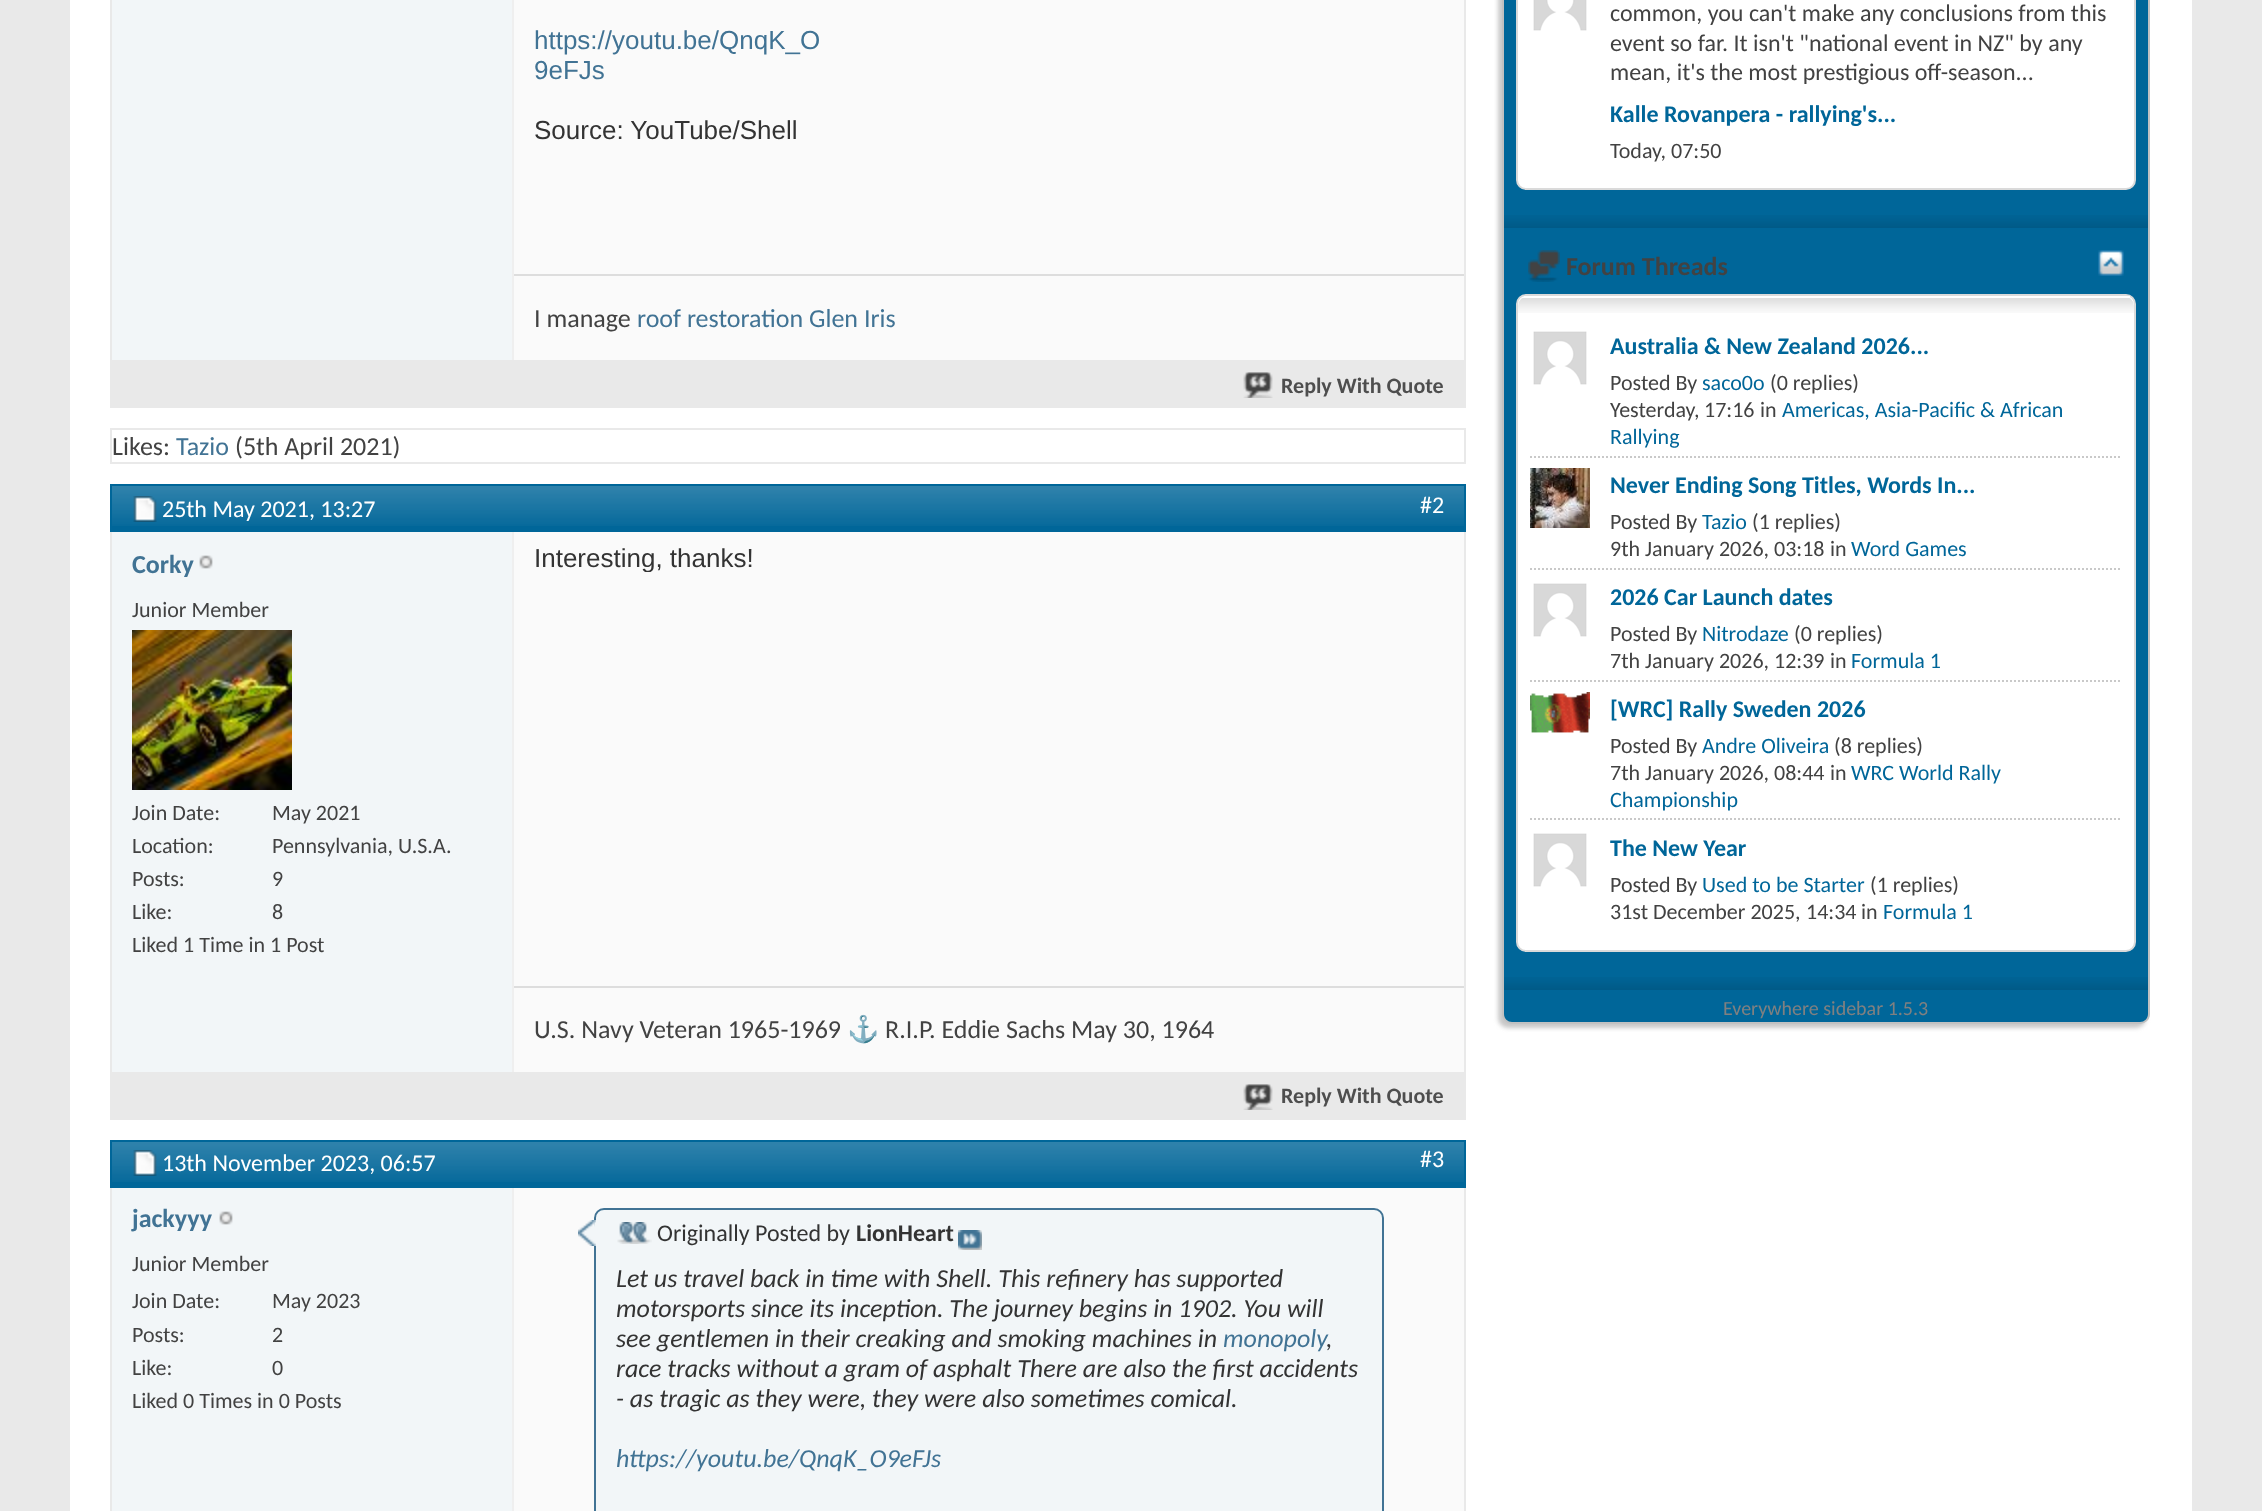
<?xml version="1.0" encoding="UTF-8"?>
<svg xmlns="http://www.w3.org/2000/svg" width="2262" height="1511">
    <defs>
        <clipPath id="clip1"><rect x="534" y="542" width="910" height="30"/></clipPath>
        <filter id="blur1" x="-50%" y="-200%" width="200%" height="500%"><feGaussianBlur stdDeviation="2"/></filter>
    </defs>
    <rect width="100%" height="100%" fill="#E9E9E9"/>
    <rect x="70" y="0" width="2122" height="1511" fill="#FFFFFF"/>
    <rect x="111" y="-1" width="1354" height="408" fill="none" stroke="#E9E9E9" stroke-width="2"/>
    <rect x="112" y="0" width="400" height="360" fill="#F2F6F8"/>
    <rect x="514" y="0" width="950" height="360" fill="#FAFAFA"/>
    <rect x="512" y="0" width="2" height="360" fill="#EFEFEF"/>
    <text font-family="Liberation Sans" font-size="26" fill="#417394">
        <tspan x="534" y="49">https://youtu.be/QnqK_O</tspan>
        <tspan x="534" y="79">9eFJs</tspan>
    </text>
    <text x="534" y="139" font-family="Liberation Sans" font-size="26" fill="#333333">Source: YouTube/Shell</text>
    <rect x="514" y="274" width="950" height="2" fill="#DDDDDD"/>
    <text x="534" y="327" font-family="Carlito" font-size="26" fill="#424242">I manage</text>
    <text x="637" y="327" font-family="Carlito" font-size="26" fill="#417394">roof restoration Glen Iris</text>
    <rect x="112" y="360" width="1352" height="46" fill="#E9E9E9"/>
    <image x="1243" y="372" width="30" height="26" href="img_01.png"/>
    <text x="1281" y="393" font-family="Carlito" font-size="22" font-weight="700" fill="#4E4E4E">Reply With Quote</text>
    <rect x="111" y="429" width="1354" height="34" fill="none" stroke="#E9E9E9" stroke-width="2"/>
    <text x="112" y="455" font-family="Carlito" font-size="26" fill="#424242">Likes:</text>
    <text x="176" y="455" font-family="Carlito" font-size="26" fill="#417394">Tazio</text>
    <text x="235" y="455" font-family="Carlito" font-size="26" fill="#424242">(5th April 2021)</text>
    <rect x="111" y="485" width="1354" height="634" fill="none" stroke="#E9E9E9" stroke-width="2"/>
    <rect x="112" y="486" width="1352" height="44" fill="#006699"/>
    <image x="112" y="486" width="1352" height="40" href="img_02.png"/>
    <rect x="111" y="485" width="1354" height="46" fill="none" stroke="#006699" stroke-width="2"/>
    <image x="133" y="496" width="24" height="26" href="img_03.png"/>
    <text x="162" y="517" font-family="Carlito" font-size="24" fill="#FFFFFF">25th May 2021, 13:27</text>
    <text x="1420" y="513" font-family="Carlito" font-size="24" fill="#FFFFFF">#2</text>
    <rect x="112" y="532" width="400" height="540" fill="#F2F6F8"/>
    <text x="132" y="573" font-family="Carlito" font-size="26" font-weight="700" fill="#417394">Corky</text>
    <image x="199" y="555" width="14" height="14" href="img_04.png"/>
    <text x="132" y="617" font-family="Carlito" font-size="22" fill="#424242">Junior Member</text>
    <image x="132" y="630" width="160" height="160" href="img_05.png"/>
    <text x="132" y="820" font-family="Carlito" font-size="22" fill="#424242">Join Date:</text>
    <text x="272" y="820" font-family="Carlito" font-size="22" fill="#424242">May 2021</text>
    <text x="132" y="853" font-family="Carlito" font-size="22" fill="#424242">Location:</text>
    <text x="272" y="853" font-family="Carlito" font-size="22" fill="#424242">Pennsylvania, U.S.A.</text>
    <text x="132" y="886" font-family="Carlito" font-size="22" fill="#424242">Posts:</text>
    <text x="272" y="886" font-family="Carlito" font-size="22" fill="#424242">9</text>
    <text x="132" y="919" font-family="Carlito" font-size="22" fill="#424242">Like:</text>
    <text x="272" y="919" font-family="Carlito" font-size="22" fill="#424242">8</text>
    <text x="132" y="952" font-family="Carlito" font-size="22" fill="#424242">Liked 1 Time in 1 Post</text>
    <rect x="514" y="532" width="950" height="540" fill="#FAFAFA"/>
    <rect x="512" y="532" width="2" height="540" fill="#EFEFEF"/>
    <g clip-path="url(#clip1)">
        <text x="534" y="567" font-family="Liberation Sans" font-size="26" fill="#333333">Interesting, thanks!</text>
    </g>
    <rect x="514" y="986" width="950" height="2" fill="#DDDDDD"/>
    <text x="534" y="1038" font-family="Carlito" font-size="26" fill="#424242">U.S. Navy Veteran 1965-1969</text>
    <text x="847" y="1038" font-family="Noto Color Emoji" font-size="26" fill="#424242">⚓️</text>
    <text x="885" y="1038" font-family="Carlito" font-size="26" fill="#424242">R.I.P. Eddie Sachs May 30, 1964</text>
    <rect x="112" y="1072" width="1352" height="46" fill="#E9E9E9"/>
    <image x="1243" y="1084" width="30" height="26" href="img_01.png"/>
    <text x="1281" y="1103" font-family="Carlito" font-size="22" font-weight="700" fill="#4E4E4E">Reply With Quote</text>
    <rect x="111" y="1141" width="1354" height="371" fill="none" stroke="#E9E9E9" stroke-width="2"/>
    <rect x="112" y="1142" width="1352" height="44" fill="#006699"/>
    <image x="112" y="1142" width="1352" height="40" href="img_02.png"/>
    <rect x="111" y="1141" width="1354" height="46" fill="none" stroke="#006699" stroke-width="2"/>
    <image x="133" y="1150" width="24" height="26" href="img_06.png"/>
    <text x="162" y="1171" font-family="Carlito" font-size="24" fill="#FFFFFF">13th November 2023, 06:57</text>
    <text x="1420" y="1167" font-family="Carlito" font-size="24" fill="#FFFFFF">#3</text>
    <rect x="112" y="1188" width="400" height="323" fill="#F2F6F8"/>
    <text x="132" y="1227" font-family="Carlito" font-size="26" font-weight="700" fill="#417394">jackyyy</text>
    <image x="219" y="1211" width="14" height="14" href="img_04.png"/>
    <text font-family="Carlito" font-size="22" fill="#424242">
        <tspan x="132" y="1271">Junior Member</tspan>
        <tspan x="132" y="1308">Join Date:</tspan>
    </text>
    <text x="272" y="1308" font-family="Carlito" font-size="22" fill="#424242">May 2023</text>
    <text x="132" y="1342" font-family="Carlito" font-size="22" fill="#424242">Posts:</text>
    <text x="272" y="1342" font-family="Carlito" font-size="22" fill="#424242">2</text>
    <text x="132" y="1375" font-family="Carlito" font-size="22" fill="#424242">Like:</text>
    <text x="272" y="1375" font-family="Carlito" font-size="22" fill="#424242">0</text>
    <text x="132" y="1408" font-family="Carlito" font-size="22" fill="#424242">Liked 0 Times in 0 Posts</text>
    <rect x="514" y="1188" width="950" height="323" fill="#FAFAFA"/>
    <rect x="512" y="1188" width="2" height="323" fill="#EFEFEF"/>
    <rect x="595" y="1209" width="788" height="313" rx="9" fill="#F2F6F8" stroke="#417394" stroke-width="2"/>
    <image x="578" y="1220" width="18" height="26" href="img_07.png"/>
    <image x="617" y="1222" width="35" height="22" href="img_08.png"/>
    <text x="657" y="1241" font-family="Carlito" font-size="24" fill="#333333">Originally Posted by</text>
    <text x="856" y="1241" font-family="Carlito" font-size="24" font-weight="700" fill="#333333">LionHeart</text>
    <image x="958" y="1230" width="24" height="20" href="img_09.png"/>
    <text font-family="Carlito" font-size="26" font-style="italic" fill="#333333">
        <tspan x="616" y="1287">Let us travel back in time with Shell. This refinery has supported</tspan>
        <tspan x="616" y="1317">motorsports since its inception. The journey begins in 1902. You will</tspan>
        <tspan x="616" y="1347">see gentlemen in their creaking and smoking machines in</tspan>
    </text>
    <text x="1223" y="1347" font-family="Carlito" font-size="26" font-style="italic" fill="#417394">monopoly</text>
    <text x="1326" y="1347" font-family="Carlito" font-size="26" font-style="italic" fill="#333333">,</text>
    <text font-family="Carlito" font-size="26" font-style="italic" fill="#333333">
        <tspan x="616" y="1377">race tracks without a gram of asphalt There are also the first accidents</tspan>
        <tspan x="616" y="1407">- as tragic as they were, they were also sometimes comical.</tspan>
    </text>
    <text x="616" y="1467" font-family="Carlito" font-size="26" font-style="italic" fill="#417394">https://youtu.be/QnqK_O9eFJs</text>
    <rect x="1498" y="-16" width="648" height="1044" rx="10" fill="#C8C8C8" filter="url(#blur1)"/>
    <rect x="1503" y="-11" width="646" height="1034" rx="9" fill="#006699" stroke="#C1C1C1" stroke-width="2"/>
    <rect x="1517" y="-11" width="618" height="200" rx="9" fill="#FFFFFF" stroke="#DADADA" stroke-width="2"/>
    <image x="1533" y="0" width="54" height="31" href="img_10.png"/>
    <text font-family="Carlito" font-size="24" fill="#424242">
        <tspan x="1610" y="21">common, you can't make any conclusions from this</tspan>
        <tspan x="1610" y="51">event so far. It isn't "national event in NZ" by any</tspan>
        <tspan x="1610" y="80">mean, it's the most prestigious off-season...</tspan>
    </text>
    <text x="1610" y="122" font-family="Carlito" font-size="24" font-weight="700" fill="#006699">Kalle Rovanpera - rallying's...</text>
    <text x="1610" y="158" font-family="Carlito" font-size="22" fill="#424242">Today,</text>
    <text x="1671" y="158" font-family="Carlito" font-size="22" fill="#424242">07:50</text>
    <image x="1504" y="215" width="644" height="13" href="img_11.png"/>
    <image x="1528" y="250" width="32" height="32" href="img_12.png"/>
    <text x="1566" y="275" font-family="Carlito" font-size="26" font-weight="700" fill="#424242">Forum Threads</text>
    <image x="2098" y="250" width="26" height="26" href="img_13.png"/>
    <rect x="1517" y="295" width="618" height="656" rx="9" fill="#FFFFFF" stroke="#DADADA" stroke-width="2"/>
    <image x="1518" y="298" width="616" height="15" href="img_14.png"/>
    <rect x="1524" y="296" width="606" height="1" fill="#FFFFFF"/>
    <image x="1533" y="331" width="54" height="54" href="img_15.png"/>
    <text x="1610" y="354" font-family="Carlito" font-size="24" font-weight="700" fill="#006699">Australia &amp; New Zealand 2026...</text>
    <text x="1610" y="390" font-family="Carlito" font-size="22" fill="#424242">Posted By</text>
    <text x="1702" y="390" font-family="Carlito" font-size="22" fill="#006699">saco0o</text>
    <text x="1770" y="390" font-family="Carlito" font-size="22" fill="#424242">(0 replies)</text>
    <text x="1610" y="417" font-family="Carlito" font-size="22" fill="#424242">Yesterday,</text>
    <text x="1704" y="417" font-family="Carlito" font-size="22" fill="#424242">17:16</text>
    <text x="1760" y="417" font-family="Carlito" font-size="22" fill="#424242">in</text>
    <text x="1782" y="417" font-family="Carlito" font-size="22" fill="#006699">Americas, Asia-Pacific &amp; African</text>
    <text x="1610" y="444" font-family="Carlito" font-size="22" fill="#006699">Rallying</text>
    <path d="M 1530 457 H 2122" fill="none" stroke="#C9C9C9" stroke-width="2" stroke-dasharray="2 2"/>
    <image x="1530" y="468" width="60" height="60" href="img_16.png"/>
    <text x="1610" y="493" font-family="Carlito" font-size="24" font-weight="700" fill="#006699">Never Ending Song Titles, Words In...</text>
    <text x="1610" y="529" font-family="Carlito" font-size="22" fill="#424242">Posted By</text>
    <text x="1702" y="529" font-family="Carlito" font-size="22" fill="#006699">Tazio</text>
    <text x="1752" y="529" font-family="Carlito" font-size="22" fill="#424242">(1 replies)</text>
    <text x="1610" y="556" font-family="Carlito" font-size="22" fill="#424242">9th January 2026,</text>
    <text x="1774" y="556" font-family="Carlito" font-size="22" fill="#424242">03:18</text>
    <text x="1830" y="556" font-family="Carlito" font-size="22" fill="#424242">in</text>
    <text x="1851" y="556" font-family="Carlito" font-size="22" fill="#006699">Word Games</text>
    <path d="M 1530 569 H 2122" fill="none" stroke="#C9C9C9" stroke-width="2" stroke-dasharray="2 2"/>
    <image x="1533" y="583" width="54" height="54" href="img_15.png"/>
    <text x="1610" y="605" font-family="Carlito" font-size="24" font-weight="700" fill="#006699">2026 Car Launch dates</text>
    <text x="1610" y="641" font-family="Carlito" font-size="22" fill="#424242">Posted By</text>
    <text x="1702" y="641" font-family="Carlito" font-size="22" fill="#006699">Nitrodaze</text>
    <text x="1794" y="641" font-family="Carlito" font-size="22" fill="#424242">(0 replies)</text>
    <text x="1610" y="668" font-family="Carlito" font-size="22" fill="#424242">7th January 2026,</text>
    <text x="1774" y="668" font-family="Carlito" font-size="22" fill="#424242">12:39</text>
    <text x="1830" y="668" font-family="Carlito" font-size="22" fill="#424242">in</text>
    <text x="1851" y="668" font-family="Carlito" font-size="22" fill="#006699">Formula 1</text>
    <path d="M 1530 681 H 2122" fill="none" stroke="#C9C9C9" stroke-width="2" stroke-dasharray="2 2"/>
    <image x="1530" y="692" width="60" height="41" href="img_17.png"/>
    <text x="1610" y="717" font-family="Carlito" font-size="24" font-weight="700" fill="#006699">[WRC] Rally Sweden 2026</text>
    <text x="1610" y="753" font-family="Carlito" font-size="22" fill="#424242">Posted By</text>
    <text x="1702" y="753" font-family="Carlito" font-size="22" fill="#006699">Andre Oliveira</text>
    <text x="1834" y="753" font-family="Carlito" font-size="22" fill="#424242">(8 replies)</text>
    <text x="1610" y="780" font-family="Carlito" font-size="22" fill="#424242">7th January 2026,</text>
    <text x="1774" y="780" font-family="Carlito" font-size="22" fill="#424242">08:44</text>
    <text x="1830" y="780" font-family="Carlito" font-size="22" fill="#424242">in</text>
    <text x="1851" y="780" font-family="Carlito" font-size="22" fill="#006699">WRC World Rally</text>
    <text x="1610" y="807" font-family="Carlito" font-size="22" fill="#006699">Championship</text>
    <path d="M 1530 819 H 2122" fill="none" stroke="#C9C9C9" stroke-width="2" stroke-dasharray="2 2"/>
    <image x="1533" y="833" width="54" height="54" href="img_15.png"/>
    <text x="1610" y="856" font-family="Carlito" font-size="24" font-weight="700" fill="#006699">The New Year</text>
    <text x="1610" y="892" font-family="Carlito" font-size="22" fill="#424242">Posted By</text>
    <text x="1702" y="892" font-family="Carlito" font-size="22" fill="#006699">Used to be Starter</text>
    <text x="1870" y="892" font-family="Carlito" font-size="22" fill="#424242">(1 replies)</text>
    <text x="1610" y="919" font-family="Carlito" font-size="22" fill="#424242">31st December 2025,</text>
    <text x="1806" y="919" font-family="Carlito" font-size="22" fill="#424242">14:34</text>
    <text x="1861" y="919" font-family="Carlito" font-size="22" fill="#424242">in</text>
    <text x="1883" y="919" font-family="Carlito" font-size="22" fill="#006699">Formula 1</text>
    <image x="1504" y="977" width="644" height="13" href="img_11.png"/>
    <text x="1723" y="1015" font-family="Carlito" font-size="20" fill="#808080">Everywhere sidebar 1.5.3</text>
</svg>
